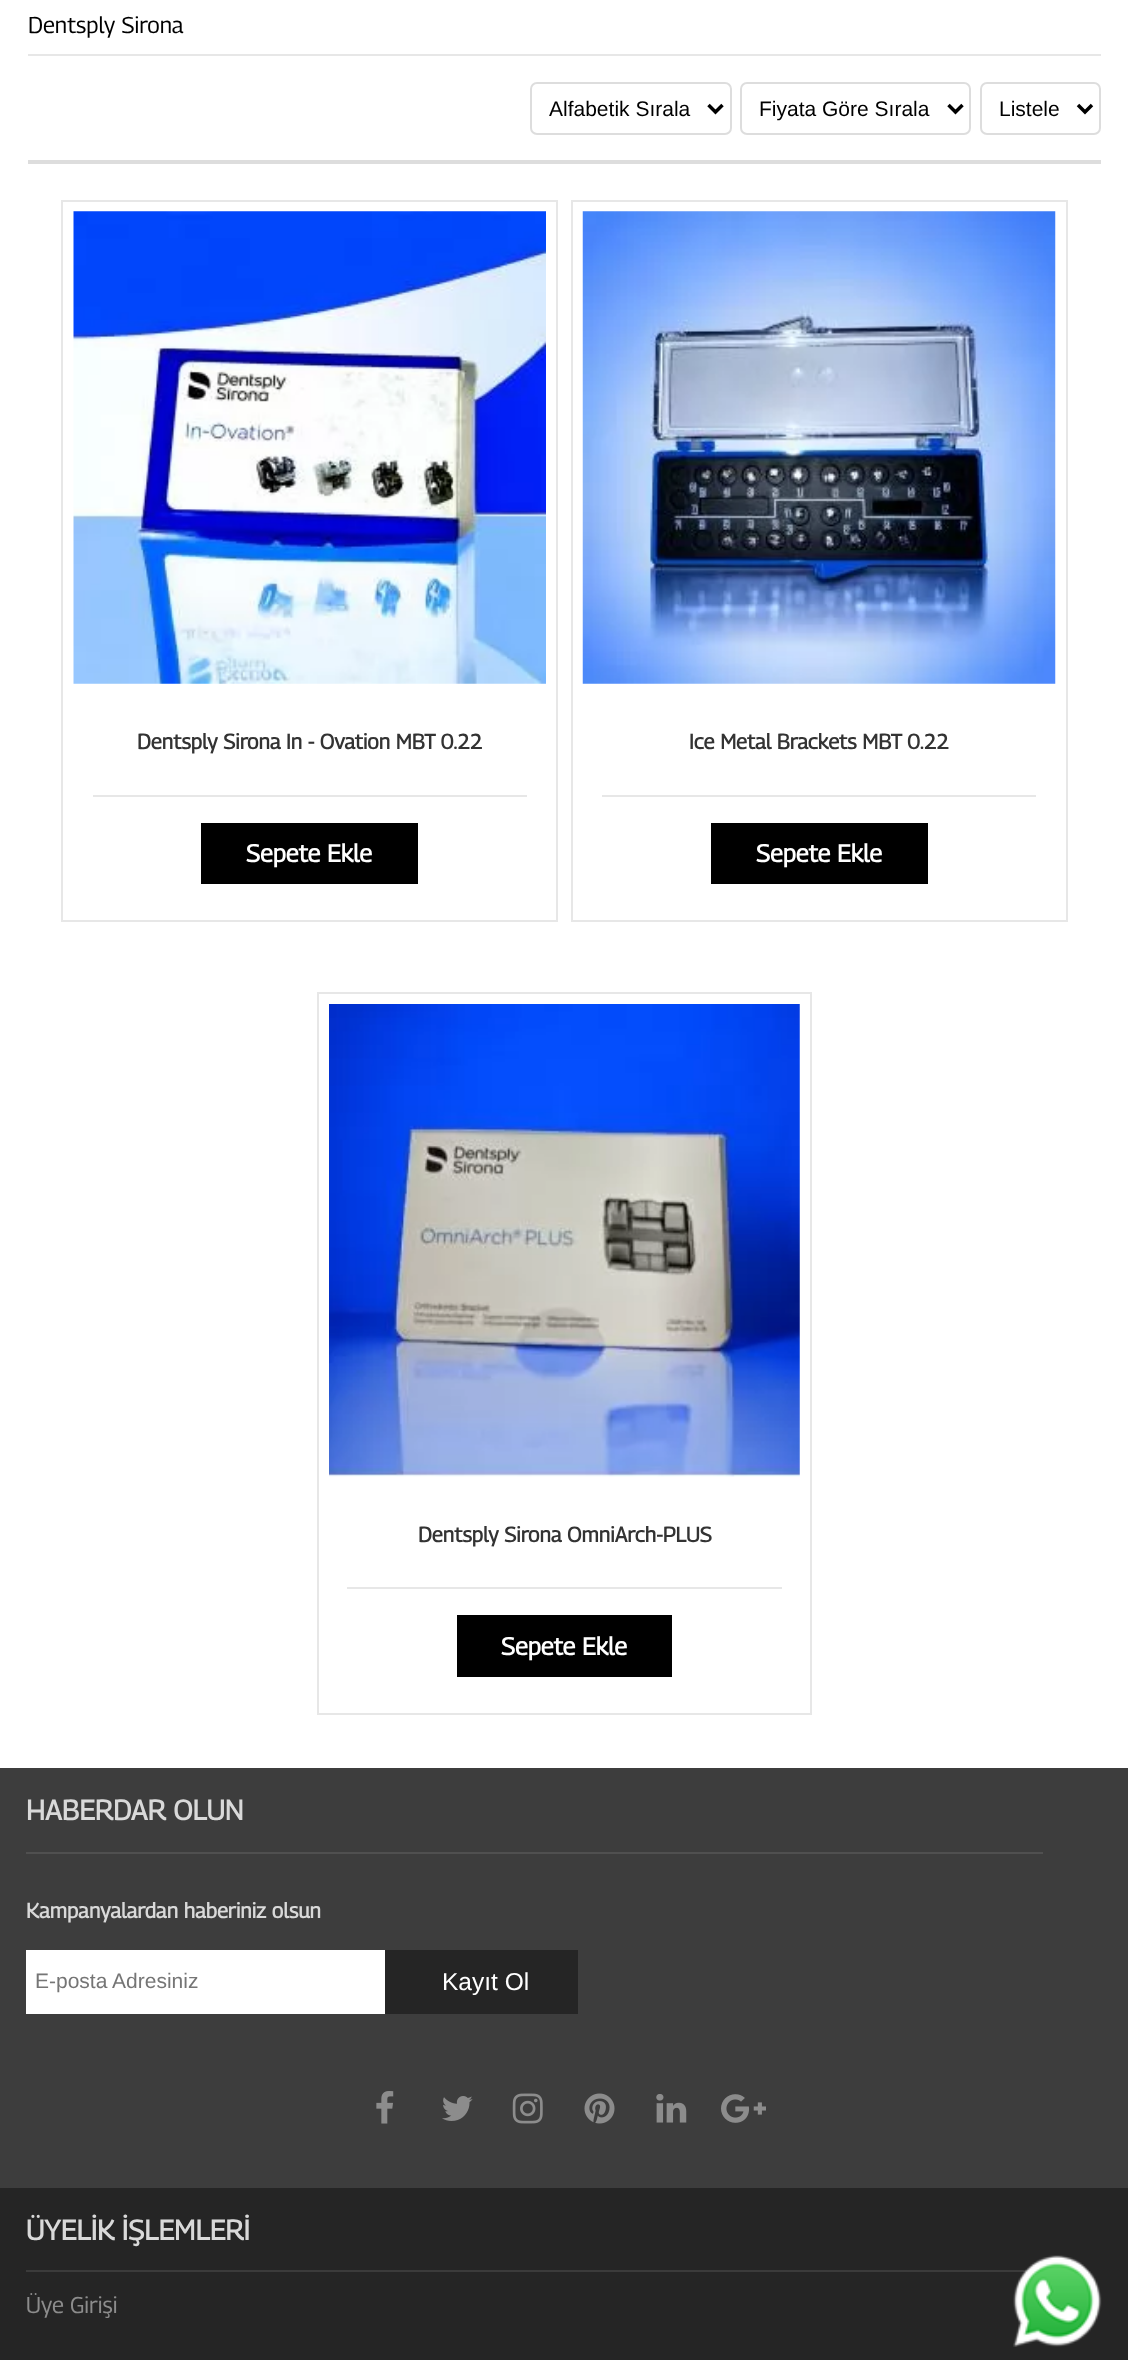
<?xml version="1.0" encoding="UTF-8"?>
<svg xmlns="http://www.w3.org/2000/svg" width="1128" height="2360">
    <rect width="100%" height="100%" fill="#FFFFFF"/>
    <rect x="28" y="54" width="1073" height="2" fill="#E7E7E7"/>
    <text x="28" y="33" font-family="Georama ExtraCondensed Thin" font-size="22.75" font-weight="100" fill="#000000">Dentsply Sirona</text>
    <rect x="28" y="160" width="1073" height="4" fill="#DDDDDD"/>
    <rect x="531" y="83" width="200" height="51" rx="6" fill="none" stroke="#DDDDDD" stroke-width="2"/>
    <path d="M 708.5 105 L 715.5 112 L 722.5 105" fill="none" stroke="#000000" stroke-width="3.5"/>
    <text x="549" y="116" font-family="Liberation Sans" font-size="21" fill="#000000">Alfabetik Sırala</text>
    <rect x="741" y="83" width="229" height="51" rx="6" fill="none" stroke="#DDDDDD" stroke-width="2"/>
    <path d="M 948.5 105 L 955.5 112 L 962.5 105" fill="none" stroke="#000000" stroke-width="3.5"/>
    <text x="759" y="116" font-family="Liberation Sans" font-size="21" fill="#000000">Fiyata Göre Sırala</text>
    <rect x="981" y="83" width="119" height="51" rx="6" fill="none" stroke="#DDDDDD" stroke-width="2"/>
    <path d="M 1078 105 L 1085 112 L 1092 105" fill="none" stroke="#000000" stroke-width="3.5"/>
    <text x="999" y="116" font-family="Liberation Sans" font-size="21" fill="#000000">Listele</text>
    <rect x="62" y="201" width="495" height="720" fill="none" stroke="#E7E7E7" stroke-width="2"/>
    <image x="73" y="211" width="473" height="473" href="img_01.png"/>
    <rect x="93" y="795" width="434" height="2" fill="#E7E7E7"/>
    <text x="137" y="749" font-family="Georama ExtraCondensed Thin" font-size="21" font-weight="700" fill="#333333">Dentsply Sirona In - Ovation MBT 0.22</text>
    <rect x="201" y="823" width="217" height="61" fill="#000000"/>
    <text x="246" y="862" font-family="Georama ExtraCondensed Thin" font-size="24.5" font-weight="700" fill="#FFFFFF">Sepete Ekle</text>
    <rect x="572" y="201" width="495" height="720" fill="none" stroke="#E7E7E7" stroke-width="2"/>
    <image x="582" y="211" width="474" height="473" href="img_02.png"/>
    <rect x="602" y="795" width="434" height="2" fill="#E7E7E7"/>
    <text x="689" y="749" font-family="Georama ExtraCondensed Thin" font-size="21" font-weight="700" fill="#333333">Ice Metal Brackets MBT 0.22</text>
    <rect x="711" y="823" width="217" height="61" fill="#000000"/>
    <text x="756" y="862" font-family="Georama ExtraCondensed Thin" font-size="24.5" font-weight="700" fill="#FFFFFF">Sepete Ekle</text>
    <rect x="318" y="993" width="493" height="721" fill="none" stroke="#E7E7E7" stroke-width="2"/>
    <image x="329" y="1004" width="471" height="473" href="img_03.png"/>
    <rect x="347" y="1587" width="435" height="2" fill="#E7E7E7"/>
    <text x="418" y="1542" font-family="Georama ExtraCondensed Thin" font-size="21" font-weight="700" fill="#333333">Dentsply Sirona OmniArch-PLUS</text>
    <rect x="457" y="1615" width="215" height="62" fill="#000000"/>
    <text x="501" y="1655" font-family="Georama ExtraCondensed Thin" font-size="24.5" font-weight="700" fill="#FFFFFF">Sepete Ekle</text>
    <rect x="0" y="1768" width="1128" height="420" fill="#3D3D3D"/>
    <rect x="26" y="1852" width="1017" height="2" fill="#505050"/>
    <text x="26" y="1820" font-family="Georama ExtraCondensed Thin" font-size="28" font-weight="700" fill="#D9D9D9">HABERDAR OLUN</text>
    <text x="26" y="1918" font-family="Georama ExtraCondensed Thin" font-size="21" font-weight="700" fill="#D9D9D9">Kampanyalardan haberiniz olsun</text>
    <rect x="26" y="1950" width="359" height="64" fill="#FFFFFF"/>
    <text x="35" y="1988" font-family="Liberation Sans" font-size="21" fill="#757575">E-posta Adresiniz</text>
    <rect x="385" y="1950" width="193" height="64" fill="#252525"/>
    <text x="442" y="1990" font-family="Liberation Sans" font-size="24.5" fill="#FFFFFF">Kayıt Ol</text>
    <image x="376" y="2091" width="18" height="33" href="img_04.png"/>
    <image x="442" y="2096" width="31" height="25" href="img_05.png"/>
    <image x="512" y="2093" width="31" height="31" href="img_06.png"/>
    <image x="584" y="2093" width="31" height="31" href="img_07.png"/>
    <image x="656" y="2094" width="31" height="29" href="img_08.png"/>
    <image x="721" y="2094" width="45" height="29" href="img_09.png"/>
    <rect x="0" y="2188" width="1128" height="172" fill="#252525"/>
    <text x="26" y="2240" font-family="Georama ExtraCondensed Thin" font-size="28" font-weight="700" fill="#D9D9D9">ÜYELİK İŞLEMLERİ</text>
    <rect x="26" y="2270" width="1004" height="2" fill="#3B3B3B"/>
    <text x="26" y="2313" font-family="Georama ExtraCondensed Thin" font-size="22.75" font-weight="100" fill="#8C8C8C">Üye Girişi</text>
    <image x="1013" y="2255" width="89" height="92" href="img_10.png"/>
</svg>
